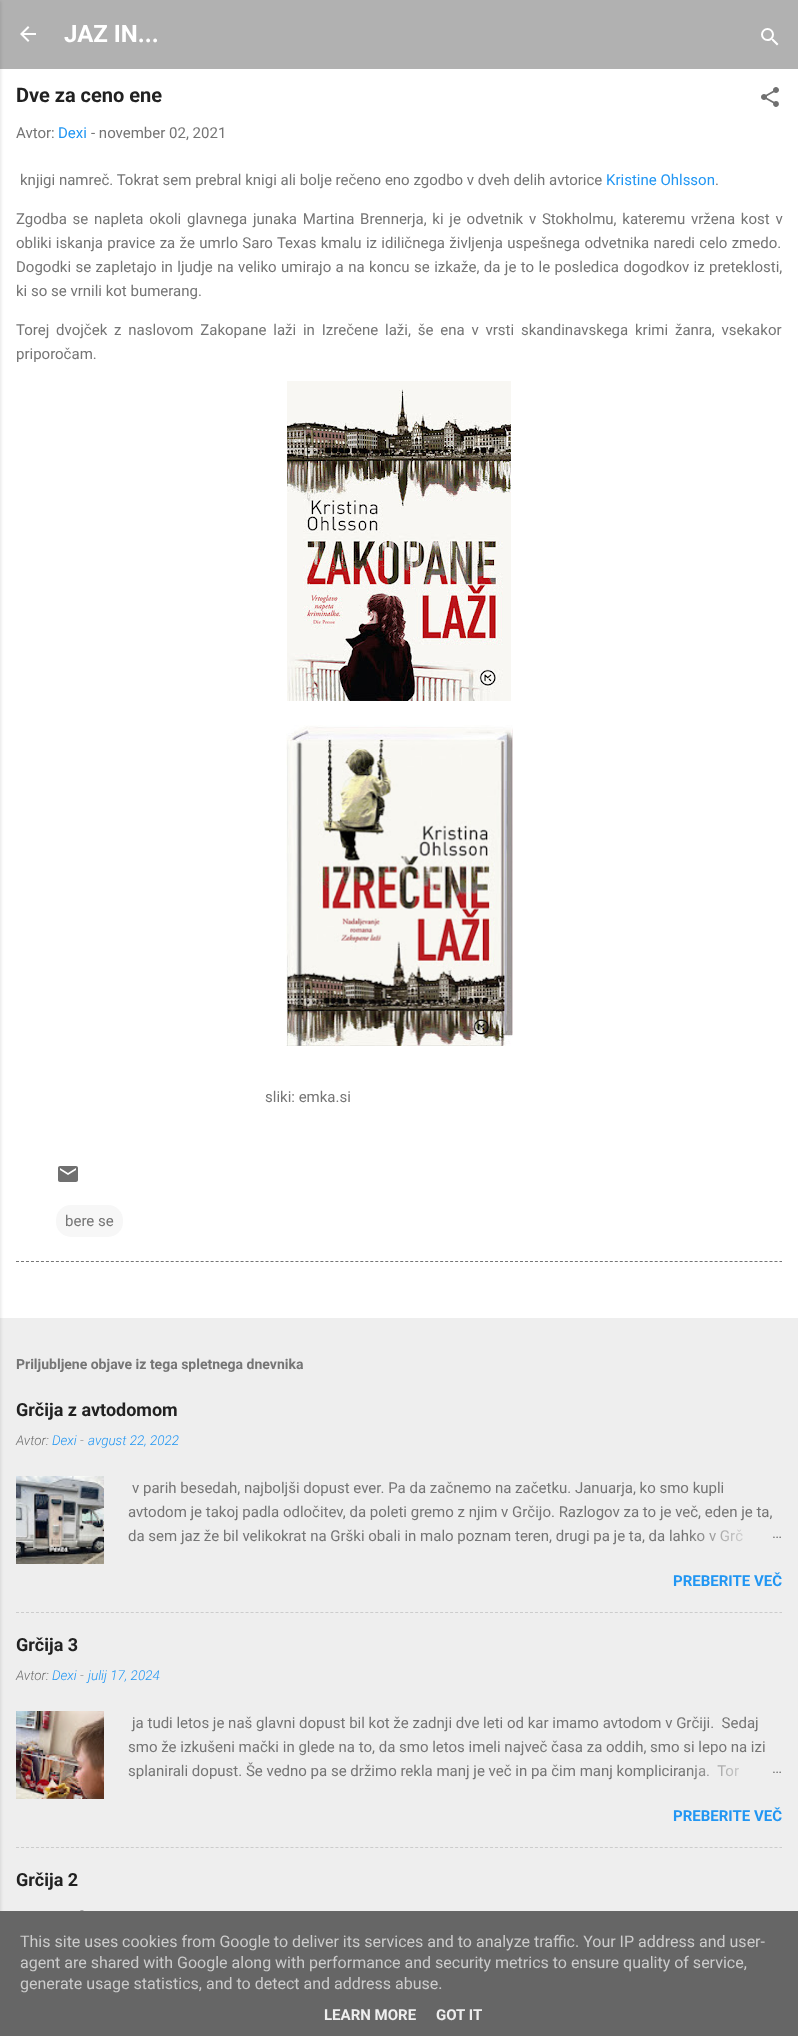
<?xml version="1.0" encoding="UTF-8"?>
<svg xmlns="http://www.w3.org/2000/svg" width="798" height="2036">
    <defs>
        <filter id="blur1" x="-50%" y="-200%" width="200%" height="500%"><feGaussianBlur stdDeviation="1.5"/></filter>
        <linearGradient id="g1" gradientUnits="userSpaceOnUse" x1="782" y1="1536" x2="686" y2="1536"><stop offset="0" stop-color="#EEEEEE"/><stop offset="0.2" stop-color="#EEEEEE"/><stop offset="1" stop-color="#EEEEEE" stop-opacity="0"/></linearGradient>
        <linearGradient id="g2" gradientUnits="userSpaceOnUse" x1="782" y1="1771" x2="686" y2="1771"><stop offset="0" stop-color="#EEEEEE"/><stop offset="0.2" stop-color="#EEEEEE"/><stop offset="1" stop-color="#EEEEEE" stop-opacity="0"/></linearGradient>
    </defs>
    <rect width="100%" height="100%" fill="#EEEEEE"/>
    <rect x="0" y="0" width="798" height="69" fill="#B1B1B1"/>
    <rect x="0" y="69" width="798" height="1249" fill="#FFFFFF"/>
    <rect x="-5" y="1" width="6" height="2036" fill="#000000" fill-opacity="0.1" filter="url(#blur1)"/>
    <image x="20" y="26" width="16" height="16" href="img_01.png"/>
    <text x="64" y="42" font-family="Roboto" font-size="24" font-weight="700" fill="#FFFFFF">JAZ IN...</text>
    <image x="761" y="28" width="18" height="18" href="img_02.png"/>
    <text x="16" y="102" font-family="Roboto" font-size="20" font-weight="700" fill="#212121">Dve za ceno ene</text>
    <image x="761" y="87" width="18" height="20" href="img_03.png"/>
    <text x="16" y="138" font-family="Roboto" font-size="15" fill="#757575">Avtor:</text>
    <text x="58" y="138" font-family="Roboto" font-size="15" fill="#2196F3">Dexi</text>
    <text x="91" y="138" font-family="Roboto" font-size="15" fill="#757575">- november 02, 2021</text>
    <text x="20" y="185" font-family="Roboto" font-size="15" fill="#757575">knjigi namreč. Tokrat sem prebral knigi ali bolje rečeno eno zgodbo v dveh delih avtorice</text>
    <text x="606" y="185" font-family="Roboto" font-size="15" fill="#2196F3">Kristine Ohlsson</text>
    <text x="715" y="185" font-family="Roboto" font-size="15" fill="#757575">.</text>
    <text font-family="Roboto" font-size="15" fill="#757575">
        <tspan x="16" y="224" word-spacing="2">Zgodba se napleta okoli glavnega junaka Martina Brennerja, ki je odvetnik v Stokholmu, kateremu vržena kost v</tspan>
        <tspan x="16" y="248" word-spacing="0.6">obliki iskanja pravice za že umrlo Saro Texas kmalu iz idiličnega življenja uspešnega odvetnika naredi celo zmedo.</tspan>
        <tspan x="16" y="272" word-spacing="0.7">Dogodki se zapletajo in ljudje na veliko umirajo a na koncu se izkaže, da je to le posledica dogodkov iz preteklosti,</tspan>
        <tspan x="16" y="296">ki so se vrnili kot bumerang.</tspan>
    </text>
    <text font-family="Roboto" font-size="15" fill="#757575">
        <tspan x="16" y="335" word-spacing="3.1">Torej dvojček z naslovom Zakopane laži in Izrečene laži, še ena v vrsti skandinavskega krimi žanra, vsekakor</tspan>
        <tspan x="16" y="359">priporočam.</tspan>
    </text>
    <image x="287" y="381" width="224" height="320" href="img_04.png"/>
    <image x="286" y="725" width="227" height="321" href="img_05.png"/>
    <text x="265" y="1102" font-family="Roboto" font-size="15" fill="#757575">sliki: emka.si</text>
    <image x="58" y="1166" width="20" height="16" href="img_06.png"/>
    <rect x="56" y="1205" width="67" height="32" rx="15" fill="#F7F7F7"/>
    <text x="65" y="1226" font-family="Roboto" font-size="15" fill="#757575">bere se</text>
    <path d="M 16 1261.5 H 782" fill="none" stroke="#757575" stroke-dasharray="3 1.99"/>
    <text x="16" y="1369" font-family="Roboto" font-size="14" font-weight="700" fill="#757575">Priljubljene objave iz tega spletnega dnevnika</text>
    <text x="16" y="1416" font-family="Roboto" font-size="18" font-weight="700" fill="#212121">Grčija z avtodomom</text>
    <text x="16" y="1445" font-family="Roboto" font-size="13.5" font-weight="300" font-style="italic" fill="#6D6D6D">Avtor:</text>
    <text x="52" y="1445" font-family="Roboto" font-size="13.5" font-weight="300" font-style="italic" fill="#2196F3">Dexi</text>
    <text x="80" y="1445" font-family="Roboto" font-size="13.5" font-weight="300" font-style="italic" fill="#6D6D6D">-</text>
    <text x="88" y="1445" font-family="Roboto" font-size="13.5" font-weight="300" font-style="italic" fill="#2196F3">avgust 22, 2022</text>
    <image x="16" y="1476" width="88" height="88" href="img_07.png"/>
    <text x="132" y="1493" font-family="Roboto" font-size="15" fill="#757575">v parih besedah, najboljši dopust ever. Pa da začnemo na začetku. Januarja, ko smo kupli</text>
    <text font-family="Roboto" font-size="15" fill="#757575">
        <tspan x="128" y="1517">avtodom je takoj padla odločitev, da poleti gremo z njim v Grčijo. Razlogov za to je več, eden je ta,</tspan>
        <tspan x="128" y="1541">da sem jaz že bil velikokrat na Grški obali in malo poznam teren, drugi pa je ta, da lahko v Grč</tspan>
    </text>
    <rect x="690" y="1529" width="53" height="13" fill="url(#g1)"/>
    <text x="772" y="1538" font-family="Roboto" font-size="15" fill="#757575">…</text>
    <text x="673" y="1586" font-family="Roboto" font-size="15" font-weight="700" fill="#2196F3">PREBERITE VEČ</text>
    <path d="M 16 1612.5 H 782" fill="none" stroke="#CCCCCC" stroke-dasharray="3 1.99"/>
    <text x="16" y="1651" font-family="Roboto" font-size="18" font-weight="700" fill="#212121">Grčija 3</text>
    <text x="16" y="1680" font-family="Roboto" font-size="13.5" font-weight="300" font-style="italic" fill="#6D6D6D">Avtor:</text>
    <text x="52" y="1680" font-family="Roboto" font-size="13.5" font-weight="300" font-style="italic" fill="#2196F3">Dexi</text>
    <text x="80" y="1680" font-family="Roboto" font-size="13.5" font-weight="300" font-style="italic" fill="#6D6D6D">-</text>
    <text x="88" y="1680" font-family="Roboto" font-size="13.5" font-weight="300" font-style="italic" fill="#2196F3">julij 17, 2024</text>
    <image x="16" y="1711" width="88" height="88" href="img_08.png"/>
    <text x="132" y="1728" font-family="Roboto" font-size="15" fill="#757575" xml:space="preserve">ja tudi letos je naš glavni dopust bil kot že zadnji dve leti od kar imamo avtodom v Grčiji.  Sedaj</text>
    <text font-family="Roboto" font-size="15" fill="#757575" xml:space="preserve"><tspan x="128" y="1752">smo že izkušeni mački in glede na to, da smo letos imeli največ časa za oddih, smo si lepo na izi</tspan><tspan x="128" y="1776">splanirali dopust. Še vedno pa se držimo rekla manj je več in pa čim manj kompliciranja.  Tor</tspan></text>
    <rect x="688" y="1765" width="51" height="14" fill="url(#g2)"/>
    <text x="772" y="1773" font-family="Roboto" font-size="15" fill="#757575">…</text>
    <text x="673" y="1821" font-family="Roboto" font-size="15" font-weight="700" fill="#2196F3">PREBERITE VEČ</text>
    <path d="M 16 1847.5 H 782" fill="none" stroke="#CCCCCC" stroke-dasharray="3 1.99"/>
    <text x="16" y="1886" font-family="Roboto" font-size="18" font-weight="700" fill="#212121">Grčija 2</text>
    <text x="80" y="1915" font-family="Roboto" font-size="13.5" font-weight="300" font-style="italic" fill="#6D6D6D">-</text>
    <rect x="0" y="1911" width="798" height="125" fill="#666666"/>
    <text font-family="Roboto" font-size="16" fill="#CCCCCC">
        <tspan x="20" y="1947">This site uses cookies from Google to deliver its services and to analyze traffic. Your IP address and user-</tspan>
        <tspan x="20" y="1968">agent are shared with Google along with performance and security metrics to ensure quality of service,</tspan>
        <tspan x="20" y="1989">generate usage statistics, and to detect and address abuse.</tspan>
    </text>
    <text x="324" y="2020" font-family="Roboto" font-size="15" font-weight="700" fill="#EEEEEE">LEARN MORE</text>
    <text x="436" y="2020" font-family="Roboto" font-size="15" font-weight="700" fill="#EEEEEE">GOT IT</text>
</svg>
